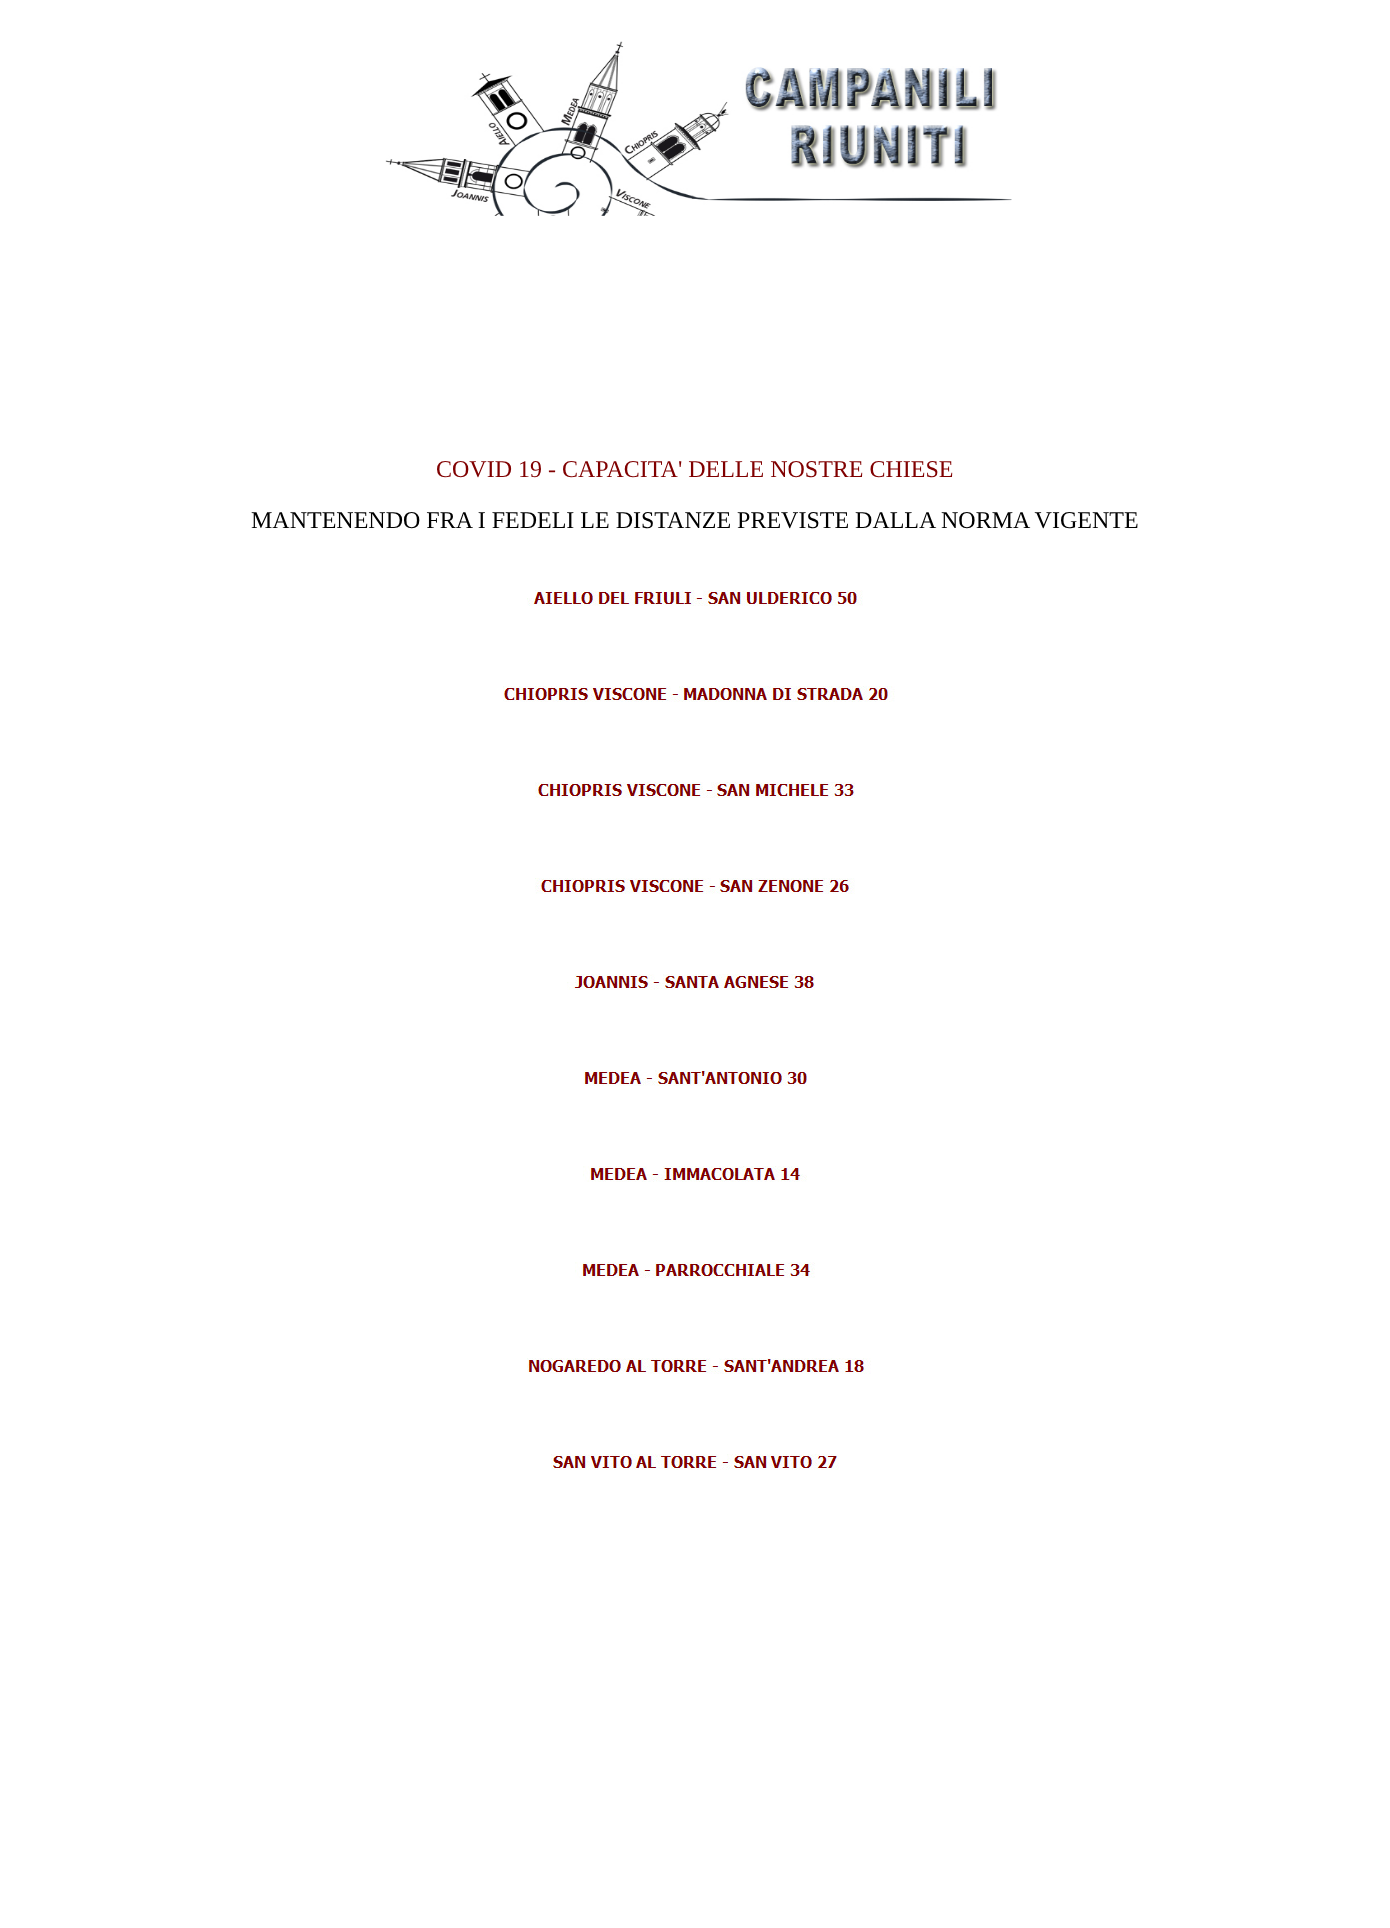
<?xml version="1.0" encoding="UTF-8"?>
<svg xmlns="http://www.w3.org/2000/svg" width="1390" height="1928">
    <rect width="100%" height="100%" fill="#FFFFFF"/>
    <image x="385" y="41" width="627" height="175" href="img_01.png"/>
    <text x="436" y="477" font-family="Liberation Serif" font-size="24" fill="#800000">COVID 19 - CAPACITA' DELLE NOSTRE CHIESE</text>
    <text x="251" y="528" font-family="Liberation Serif" font-size="24" fill="#000000">MANTENENDO FRA I FEDELI LE DISTANZE PREVISTE DALLA NORMA VIGENTE</text>
    <image x="527" y="590" width="336" height="16" href="img_02.png"/>
    <image x="503" y="686" width="392" height="16" href="img_03.png"/>
    <image x="535" y="782" width="320" height="16" href="img_04.png"/>
    <image x="535" y="878" width="320" height="16" href="img_05.png"/>
    <image x="567" y="974" width="248" height="16" href="img_06.png"/>
    <image x="583" y="1070" width="224" height="16" href="img_07.png"/>
    <image x="583" y="1166" width="224" height="16" href="img_08.png"/>
    <image x="575" y="1262" width="240" height="16" href="img_09.png"/>
    <image x="527" y="1358" width="344" height="16" href="img_10.png"/>
    <image x="551" y="1454" width="288" height="16" href="img_11.png"/>
</svg>
